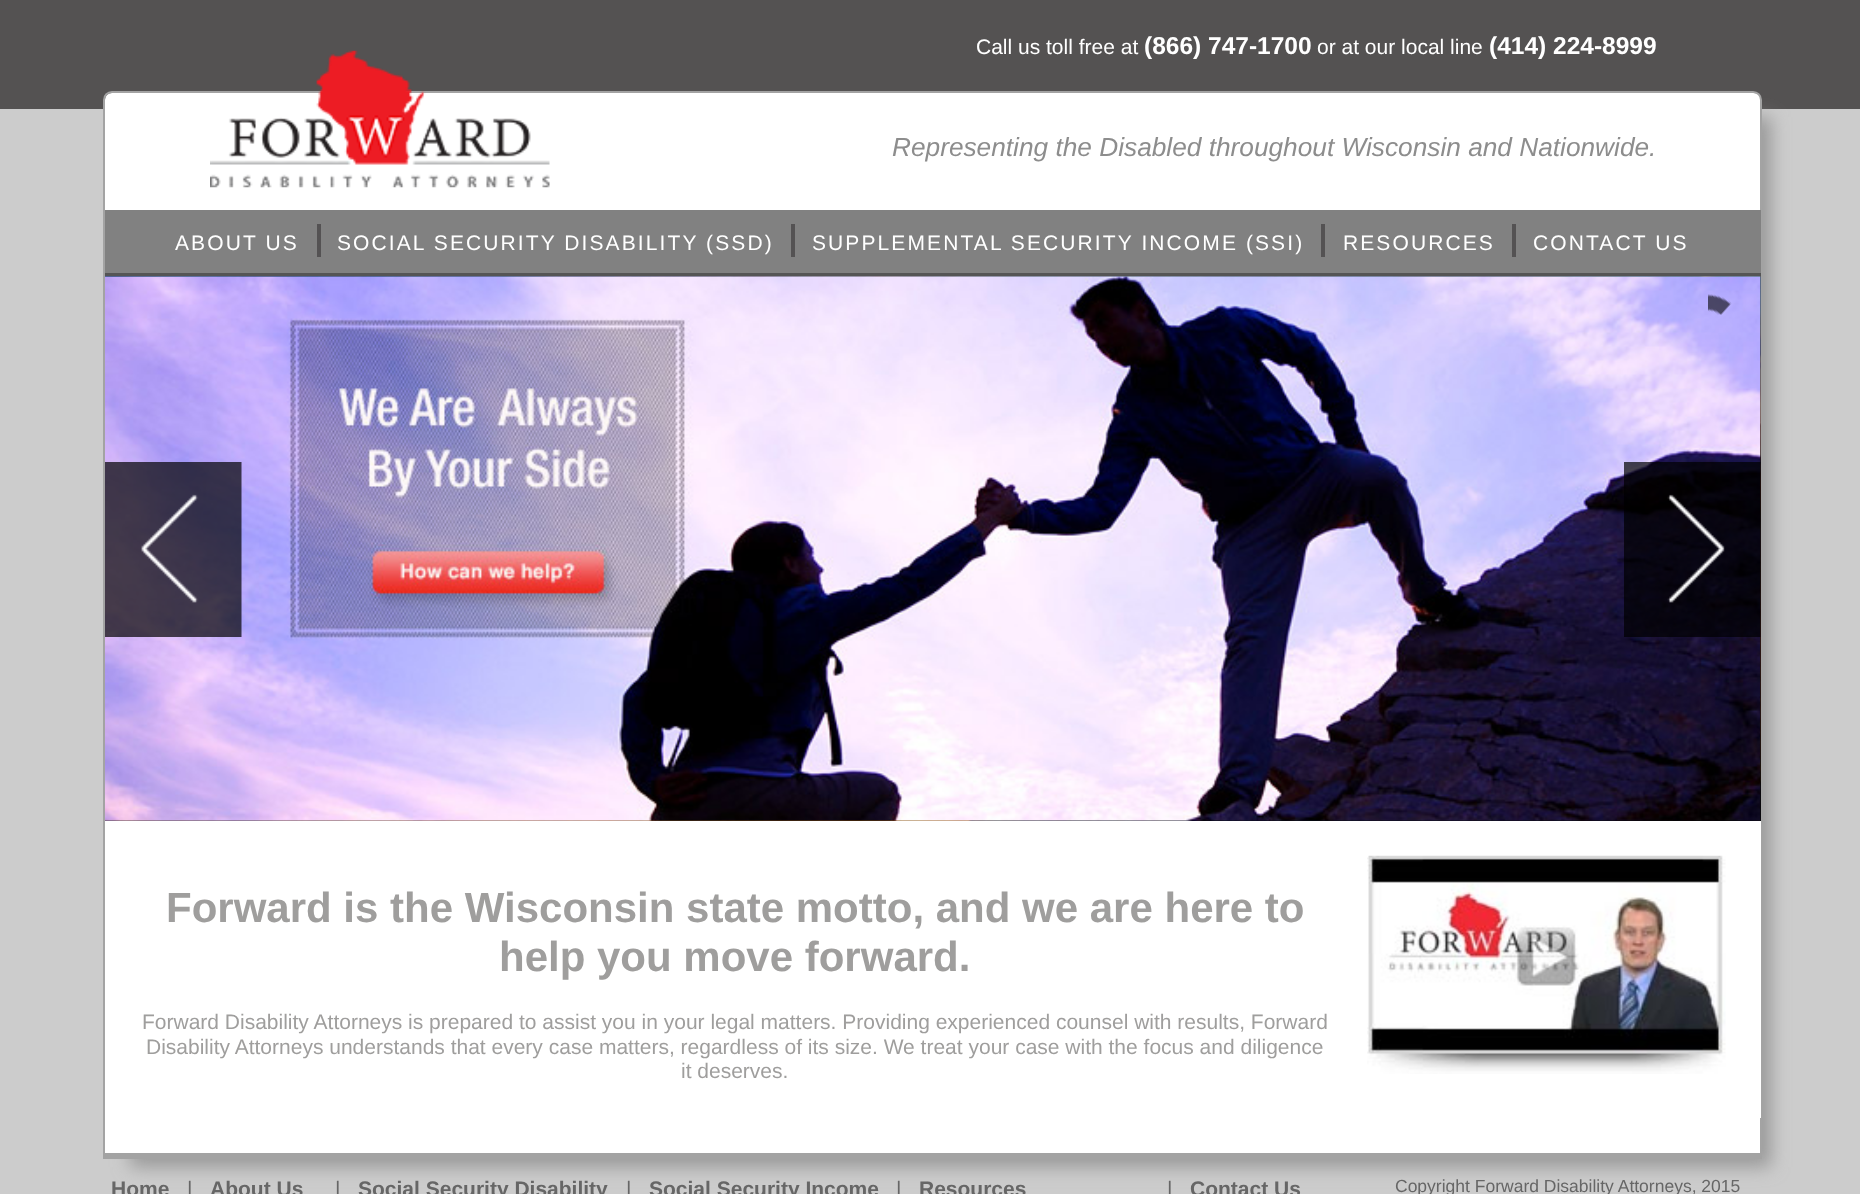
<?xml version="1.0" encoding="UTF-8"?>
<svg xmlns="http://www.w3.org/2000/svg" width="1860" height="1194">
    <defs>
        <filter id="blur1" x="-50%" y="-200%" width="200%" height="500%"><feGaussianBlur stdDeviation="9"/></filter>
    </defs>
    <rect width="100%" height="100%" fill="#CCCCCC"/>
    <rect x="0" y="0" width="1860" height="109" fill="#545252"/>
    <rect x="130" y="117" width="1641" height="1050" fill="#999999" filter="url(#blur1)"/>
    <path d="M 112 93 H 1754 C 1758 93 1761 96 1761 100 V 1153 H 105 V 100 C 105 96 108 93 112 93 Z" fill="#FFFFFF"/>
    <path d="M 112 92 H 1753 C 1757.5 92 1761 95.5 1761 100 V 1158 H 104 V 100 C 104 95.5 107.5 92 112 92 Z" fill="none" stroke="#A3A3A3" stroke-width="2"/>
    <image x="210" y="50" width="340" height="138" href="img_01.png"/>
    <text x="976" y="54" font-family="Liberation Sans" font-size="21" fill="#FFFFFF">Call us toll free at</text>
    <text x="1144" y="54" font-family="Liberation Sans" font-size="24.5" font-weight="700" fill="#FFFFFF">(866) 747-1700</text>
    <text x="1317" y="54" font-family="Liberation Sans" font-size="21" fill="#FFFFFF">or at our local line</text>
    <text x="1489" y="54" font-family="Liberation Sans" font-size="24.5" font-weight="700" fill="#FFFFFF">(414) 224-8999</text>
    <rect x="103" y="1153" width="1659" height="4" fill="#A3A3A3"/>
    <text x="892" y="156" font-family="Liberation Sans" font-size="26.25" font-style="italic" fill="#8D8D8D">Representing the Disabled throughout Wisconsin and Nationwide.</text>
    <rect x="105" y="210" width="1656" height="63" fill="#818181"/>
    <rect x="105" y="273" width="1656" height="4" fill="#555555"/>
    <text x="175" y="250" font-family="Liberation Sans" font-size="21" letter-spacing="2.1" fill="#FFFFFF">ABOUT US</text>
    <rect x="317" y="224" width="4" height="33" fill="#545253"/>
    <text x="337" y="250" font-family="Liberation Sans" font-size="21" letter-spacing="2.1" fill="#FFFFFF">SOCIAL SECURITY DISABILITY (SSD)</text>
    <rect x="791" y="224" width="4" height="33" fill="#545253"/>
    <text x="812" y="250" font-family="Liberation Sans" font-size="21" letter-spacing="2.1" fill="#FFFFFF">SUPPLEMENTAL SECURITY INCOME (SSI)</text>
    <rect x="1321" y="224" width="4" height="33" fill="#545253"/>
    <text x="1343" y="250" font-family="Liberation Sans" font-size="21" letter-spacing="2.1" fill="#FFFFFF">RESOURCES</text>
    <rect x="1512" y="224" width="4" height="33" fill="#545253"/>
    <text x="1533" y="250" font-family="Liberation Sans" font-size="21" letter-spacing="2.1" fill="#FFFFFF">CONTACT US</text>
    <rect x="105" y="277" width="1656" height="544" fill="#000000"/>
    <image x="105" y="276" width="1656" height="545" href="img_02.png"/>
    <image x="105" y="276" width="1656" height="545" href="img_03.png"/>
    <image x="105" y="276" width="1656" height="545" href="img_04.png"/>
    <image x="105" y="276" width="1656" height="545" href="img_05.png"/>
    <image x="1708" y="294" width="24" height="21" href="img_06.png"/>
    <image x="105" y="462" width="137" height="175" href="img_07.png"/>
    <image x="1624" y="462" width="137" height="175" href="img_08.png"/>
    <rect x="1760" y="821" width="1" height="297" fill="#FFFFFF"/>
    <text x="166" y="922" font-family="Liberation Sans" font-size="42" font-weight="700" fill="#9F9E9D">Forward is the Wisconsin state motto, and we are here to</text>
    <text x="499" y="971" font-family="Liberation Sans" font-size="42" font-weight="700" fill="#9F9E9D">help you move forward.</text>
    <image x="1367" y="855" width="359" height="219" href="img_09.png"/>
    <text x="142" y="1029" font-family="Liberation Sans" font-size="21" fill="#9F9E9D">Forward Disability Attorneys is prepared to assist you in your legal matters. Providing experienced counsel with results, Forward</text>
    <text x="146" y="1054" font-family="Liberation Sans" font-size="21" fill="#9F9E9D">Disability Attorneys understands that every case matters, regardless of its size. We treat your case with the focus and diligence</text>
    <text x="681" y="1078" font-family="Liberation Sans" font-size="21" fill="#9F9E9D">it deserves.</text>
    <text x="111" y="1196" font-family="Liberation Sans" font-size="21" font-weight="700" fill="#666666">Home</text>
    <text x="187" y="1196" font-family="Liberation Sans" font-size="21" fill="#666666">|</text>
    <text x="210" y="1196" font-family="Liberation Sans" font-size="21" font-weight="700" fill="#666666">About Us</text>
    <text x="335" y="1196" font-family="Liberation Sans" font-size="21" fill="#666666">|</text>
    <text x="358" y="1196" font-family="Liberation Sans" font-size="21" font-weight="700" fill="#666666">Social Security Disability</text>
    <text x="626" y="1196" font-family="Liberation Sans" font-size="21" fill="#666666">|</text>
    <text x="649" y="1196" font-family="Liberation Sans" font-size="21" font-weight="700" fill="#666666">Social Security Income</text>
    <text x="896" y="1196" font-family="Liberation Sans" font-size="21" fill="#666666">|</text>
    <text x="919" y="1196" font-family="Liberation Sans" font-size="21" font-weight="700" fill="#666666">Resources</text>
    <text x="1167" y="1196" font-family="Liberation Sans" font-size="21" fill="#666666">|</text>
    <text x="1190" y="1196" font-family="Liberation Sans" font-size="21" font-weight="700" fill="#666666">Contact Us</text>
    <text x="1395" y="1192" font-family="Liberation Sans" font-size="17.5" fill="#666666">Copyright Forward Disability Attorneys, 2015</text>
</svg>
